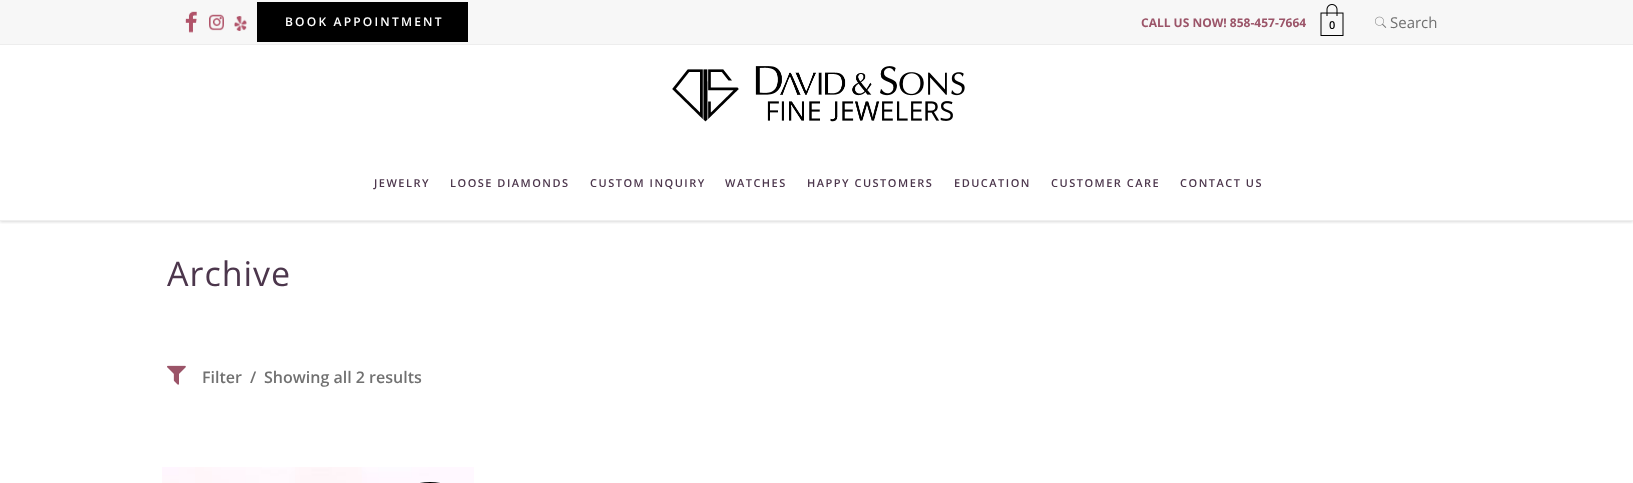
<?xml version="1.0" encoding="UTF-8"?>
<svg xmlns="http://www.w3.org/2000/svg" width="1633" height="483">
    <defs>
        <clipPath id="clip1"><rect x="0" y="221" width="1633" height="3"/></clipPath>
        <filter id="blur1" x="-50%" y="-200%" width="200%" height="500%"><feGaussianBlur stdDeviation="1.5"/></filter>
    </defs>
    <rect width="100%" height="100%" fill="#FFFFFF"/>
    <rect x="0" y="0" width="1633" height="44" fill="#F7F7F7"/>
    <rect x="0" y="44" width="1633" height="1" fill="#EDEDED"/>
    <image x="185" y="11" width="12" height="22" href="img_01.png"/>
    <image x="209" y="14" width="15" height="17" href="img_02.png"/>
    <image x="234" y="16" width="13" height="15" href="img_03.png"/>
    <rect x="257" y="2" width="211" height="40" fill="#000000"/>
    <text x="285" y="26" font-family="Open Sans" font-size="12" font-weight="600" letter-spacing="2.2" fill="#FFFFFF">BOOK APPOINTMENT</text>
    <text x="1141" y="27" font-family="Open Sans" font-size="12" font-weight="700" fill="#9B5468">CALL US NOW! 858-457-7664</text>
    <image x="1320" y="4" width="24" height="32" href="img_04.png"/>
    <text x="1329" y="29" font-family="Open Sans" font-size="11" font-weight="600" fill="#000000">0</text>
    <image x="1375" y="16" width="12" height="12" href="img_05.png"/>
    <text x="1390" y="28" font-family="Open Sans" font-size="15" fill="#717171">Search</text>
    <g clip-path="url(#clip1)">
        <rect x="0" y="146" width="1633" height="76" fill="#000000" fill-opacity="0.15" filter="url(#blur1)"/>
    </g>
    <rect x="0" y="144" width="1633" height="1" fill="#FFFFFF"/>
    <image x="672" y="66" width="293" height="56" href="img_06.png"/>
    <rect x="0" y="220" width="1633" height="1" fill="#EFEFEF"/>
    <text x="374" y="187" font-family="Open Sans" font-size="11" font-weight="600" letter-spacing="1.5" fill="#4C364C">JEWELRY</text>
    <text x="450" y="187" font-family="Open Sans" font-size="11" font-weight="600" letter-spacing="1.5" fill="#4C364C">LOOSE DIAMONDS</text>
    <text x="590" y="187" font-family="Open Sans" font-size="11" font-weight="600" letter-spacing="1.5" fill="#4C364C">CUSTOM INQUIRY</text>
    <text x="725" y="187" font-family="Open Sans" font-size="11" font-weight="600" letter-spacing="1.5" fill="#4C364C">WATCHES</text>
    <text x="807" y="187" font-family="Open Sans" font-size="11" font-weight="600" letter-spacing="1.5" fill="#4C364C">HAPPY CUSTOMERS</text>
    <text x="954" y="187" font-family="Open Sans" font-size="11" font-weight="600" letter-spacing="1.5" fill="#4C364C">EDUCATION</text>
    <text x="1051" y="187" font-family="Open Sans" font-size="11" font-weight="600" letter-spacing="1.5" fill="#4C364C">CUSTOMER CARE</text>
    <text x="1180" y="187" font-family="Open Sans" font-size="11" font-weight="600" letter-spacing="1.5" fill="#4C364C">CONTACT US</text>
    <text x="167" y="286" font-family="Open Sans" font-size="34" letter-spacing="1" fill="#4C364C">Archive</text>
    <image x="167" y="365" width="19" height="20" href="img_07.png"/>
    <text x="202" y="383" font-family="Open Sans" font-size="16" font-weight="600" fill="#717171">Filter</text>
    <text x="250" y="383" font-family="Open Sans" font-size="16" font-weight="600" fill="#717171">/</text>
    <text x="264" y="383" font-family="Open Sans" font-size="16" font-weight="600" fill="#717171">Showing all 2 results</text>
    <image x="162" y="467" width="312" height="16" href="img_08.png"/>
    <rect x="401" y="482" width="58" height="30" rx="29" fill="#000000"/>
</svg>
